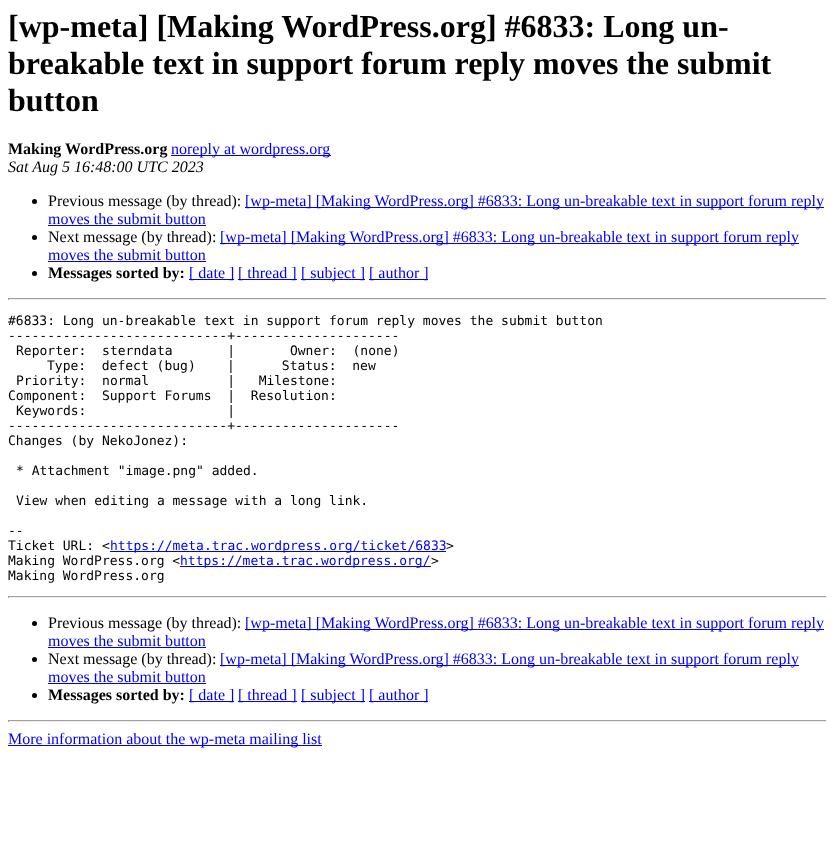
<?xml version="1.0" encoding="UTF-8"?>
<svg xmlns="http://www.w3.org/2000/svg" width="835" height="863">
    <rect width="100%" height="100%" fill="#FFFFFF"/>
    <text font-family="Liberation Serif" font-size="32" font-weight="700" fill="#000000">
        <tspan x="8" y="37">[wp-meta] [Making WordPress.org] #6833: Long un-</tspan>
        <tspan x="8" y="74">breakable text in support forum reply moves the submit</tspan>
        <tspan x="8" y="111">button</tspan>
    </text>
    <text x="8" y="154" font-family="Liberation Serif" font-size="16" font-weight="700" fill="#000000">Making WordPress.org</text>
    <rect x="171" y="155" width="160" height="1" fill="#0000EE"/>
    <text x="171" y="154" font-family="Liberation Serif" font-size="16" fill="#0000EE">noreply at wordpress.org</text>
    <text x="8" y="172" font-family="Liberation Serif" font-size="16" font-style="italic" fill="#000000">Sat Aug 5 16:48:00 UTC 2023</text>
    <circle cx="34.5" cy="201.5" r="2.5" fill="#000000"/>
    <text x="48" y="206" font-family="Liberation Serif" font-size="16" fill="#000000">Previous message (by thread):</text>
    <rect x="245" y="207" width="579" height="1" fill="#0000EE"/>
    <text x="245" y="206" font-family="Liberation Serif" font-size="16" fill="#0000EE">[wp-meta] [Making WordPress.org] #6833: Long un-breakable text in support forum reply</text>
    <text x="48" y="224" font-family="Liberation Serif" font-size="16" fill="#0000EE">moves the submit button</text>
    <rect x="48" y="225" width="158" height="1" fill="#0000EE"/>
    <circle cx="34.5" cy="237.5" r="2.5" fill="#000000"/>
    <text x="48" y="242" font-family="Liberation Serif" font-size="16" fill="#000000">Next message (by thread):</text>
    <rect x="220" y="243" width="579" height="1" fill="#0000EE"/>
    <text x="220" y="242" font-family="Liberation Serif" font-size="16" fill="#0000EE">[wp-meta] [Making WordPress.org] #6833: Long un-breakable text in support forum reply</text>
    <text x="48" y="260" font-family="Liberation Serif" font-size="16" fill="#0000EE">moves the submit button</text>
    <rect x="48" y="261" width="158" height="1" fill="#0000EE"/>
    <circle cx="34.5" cy="273.5" r="2.5" fill="#000000"/>
    <text x="48" y="278" font-family="Liberation Serif" font-size="16" font-weight="700" fill="#000000">Messages sorted by:</text>
    <rect x="189" y="279" width="45" height="1" fill="#0000EE"/>
    <text x="189" y="278" font-family="Liberation Serif" font-size="16" fill="#0000EE">[ date ]</text>
    <rect x="238" y="279" width="59" height="1" fill="#0000EE"/>
    <text x="238" y="278" font-family="Liberation Serif" font-size="16" fill="#0000EE">[ thread ]</text>
    <rect x="301" y="279" width="64" height="1" fill="#0000EE"/>
    <text x="301" y="278" font-family="Liberation Serif" font-size="16" fill="#0000EE">[ subject ]</text>
    <rect x="369" y="279" width="59" height="1" fill="#0000EE"/>
    <text x="369" y="278" font-family="Liberation Serif" font-size="16" fill="#0000EE">[ author ]</text>
    <rect x="8" y="298" width="819" height="1" fill="#9F9F9F"/>
    <rect x="826" y="298" width="1" height="2" fill="#EEEEEE"/>
    <rect x="8" y="299" width="819" height="1" fill="#EEEEEE"/>
    <rect x="8" y="298" width="1" height="2" fill="#9F9F9F"/>
    <text font-family="DejaVu Sans Mono" font-size="13" fill="#000000">
        <tspan x="8" y="325">#6833: Long un-breakable text in support forum reply moves the submit button</tspan>
        <tspan x="8" y="340">----------------------------+---------------------</tspan>
    </text>
    <text x="16" y="355" font-family="DejaVu Sans Mono" font-size="13" fill="#000000" xml:space="preserve">Reporter:  sterndata       |       Owner:  (none)</text>
    <text x="47" y="370" font-family="DejaVu Sans Mono" font-size="13" fill="#000000" xml:space="preserve">Type:  defect (bug)    |      Status:  new</text>
    <text x="16" y="385" font-family="DejaVu Sans Mono" font-size="13" fill="#000000" xml:space="preserve">Priority:  normal          |   Milestone:</text>
    <text x="8" y="400" font-family="DejaVu Sans Mono" font-size="13" fill="#000000" xml:space="preserve">Component:  Support Forums  |  Resolution:</text>
    <text x="16" y="415" font-family="DejaVu Sans Mono" font-size="13" fill="#000000" xml:space="preserve">Keywords:                  |</text>
    <text font-family="DejaVu Sans Mono" font-size="13" fill="#000000">
        <tspan x="8" y="430">----------------------------+---------------------</tspan>
        <tspan x="8" y="445">Changes (by NekoJonez):</tspan>
    </text>
    <text x="16" y="475" font-family="DejaVu Sans Mono" font-size="13" fill="#000000">* Attachment "image.png" added.</text>
    <text x="16" y="505" font-family="DejaVu Sans Mono" font-size="13" fill="#000000">View when editing a message with a long link.</text>
    <text font-family="DejaVu Sans Mono" font-size="13" fill="#000000">
        <tspan x="8" y="535">--</tspan>
        <tspan x="8" y="550">Ticket URL: &lt;</tspan>
    </text>
    <rect x="110" y="551" width="336" height="1" fill="#0000EE"/>
    <text x="110" y="550" font-family="DejaVu Sans Mono" font-size="13" fill="#0000EE">https://meta.trac.wordpress.org/ticket/6833</text>
    <text x="446" y="550" font-family="DejaVu Sans Mono" font-size="13" fill="#000000">&gt;</text>
    <text x="8" y="565" font-family="DejaVu Sans Mono" font-size="13" fill="#000000">Making WordPress.org &lt;</text>
    <rect x="180" y="566" width="251" height="1" fill="#0000EE"/>
    <text x="180" y="565" font-family="DejaVu Sans Mono" font-size="13" fill="#0000EE">https://meta.trac.wordpress.org/</text>
    <text x="431" y="565" font-family="DejaVu Sans Mono" font-size="13" fill="#000000">&gt;</text>
    <text x="8" y="580" font-family="DejaVu Sans Mono" font-size="13" fill="#000000">Making WordPress.org</text>
    <rect x="8" y="596" width="819" height="1" fill="#9F9F9F"/>
    <rect x="826" y="596" width="1" height="2" fill="#EEEEEE"/>
    <rect x="8" y="597" width="819" height="1" fill="#EEEEEE"/>
    <rect x="8" y="596" width="1" height="2" fill="#9F9F9F"/>
    <circle cx="34.5" cy="623.5" r="2.5" fill="#000000"/>
    <text x="48" y="628" font-family="Liberation Serif" font-size="16" fill="#000000">Previous message (by thread):</text>
    <rect x="245" y="629" width="579" height="1" fill="#0000EE"/>
    <text x="245" y="628" font-family="Liberation Serif" font-size="16" fill="#0000EE">[wp-meta] [Making WordPress.org] #6833: Long un-breakable text in support forum reply</text>
    <text x="48" y="646" font-family="Liberation Serif" font-size="16" fill="#0000EE">moves the submit button</text>
    <rect x="48" y="647" width="158" height="1" fill="#0000EE"/>
    <circle cx="34.5" cy="659.5" r="2.5" fill="#000000"/>
    <text x="48" y="664" font-family="Liberation Serif" font-size="16" fill="#000000">Next message (by thread):</text>
    <rect x="220" y="665" width="579" height="1" fill="#0000EE"/>
    <text x="220" y="664" font-family="Liberation Serif" font-size="16" fill="#0000EE">[wp-meta] [Making WordPress.org] #6833: Long un-breakable text in support forum reply</text>
    <text x="48" y="682" font-family="Liberation Serif" font-size="16" fill="#0000EE">moves the submit button</text>
    <rect x="48" y="683" width="158" height="1" fill="#0000EE"/>
    <circle cx="34.5" cy="695.5" r="2.5" fill="#000000"/>
    <text x="48" y="700" font-family="Liberation Serif" font-size="16" font-weight="700" fill="#000000">Messages sorted by:</text>
    <rect x="189" y="701" width="45" height="1" fill="#0000EE"/>
    <text x="189" y="700" font-family="Liberation Serif" font-size="16" fill="#0000EE">[ date ]</text>
    <rect x="238" y="701" width="59" height="1" fill="#0000EE"/>
    <text x="238" y="700" font-family="Liberation Serif" font-size="16" fill="#0000EE">[ thread ]</text>
    <rect x="301" y="701" width="64" height="1" fill="#0000EE"/>
    <text x="301" y="700" font-family="Liberation Serif" font-size="16" fill="#0000EE">[ subject ]</text>
    <rect x="369" y="701" width="59" height="1" fill="#0000EE"/>
    <text x="369" y="700" font-family="Liberation Serif" font-size="16" fill="#0000EE">[ author ]</text>
    <rect x="8" y="720" width="819" height="1" fill="#9F9F9F"/>
    <rect x="826" y="720" width="1" height="2" fill="#EEEEEE"/>
    <rect x="8" y="721" width="819" height="1" fill="#EEEEEE"/>
    <rect x="8" y="720" width="1" height="2" fill="#9F9F9F"/>
    <rect x="8" y="745" width="314" height="1" fill="#0000EE"/>
    <text x="8" y="744" font-family="Liberation Serif" font-size="16" fill="#0000EE">More information about the wp-meta mailing list</text>
</svg>
